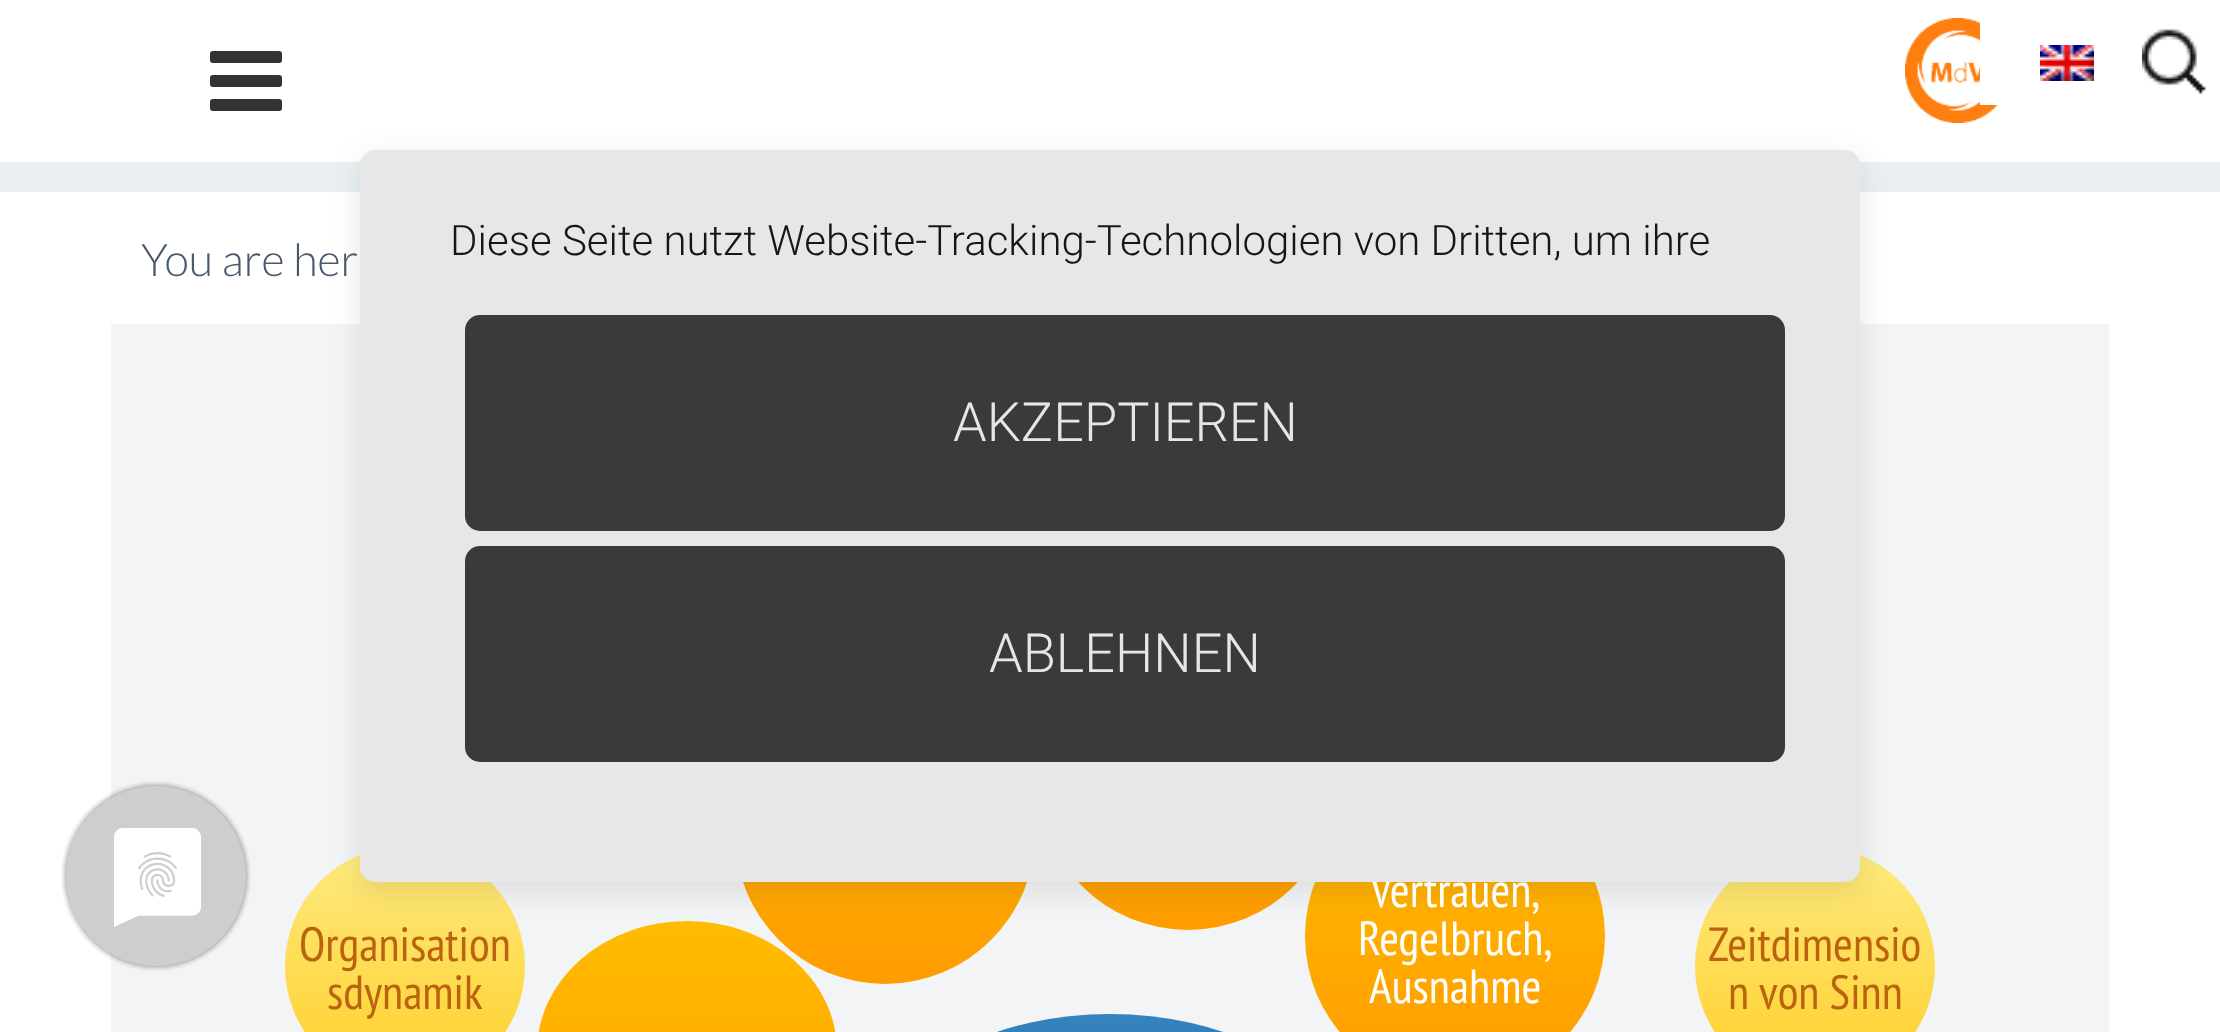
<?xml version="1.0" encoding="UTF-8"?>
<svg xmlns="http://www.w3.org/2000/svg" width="2220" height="1032">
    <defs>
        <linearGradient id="g1" gradientUnits="userSpaceOnUse" x1="405" y1="846" x2="405" y2="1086"><stop offset="0" stop-color="#FEEB82"/><stop offset="1" stop-color="#FFCE27"/></linearGradient>
        <linearGradient id="g2" gradientUnits="userSpaceOnUse" x1="687" y1="921" x2="687" y2="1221"><stop offset="0" stop-color="#FFBC00"/><stop offset="1" stop-color="#FF9C00"/></linearGradient>
        <linearGradient id="g3" gradientUnits="userSpaceOnUse" x1="885" y1="684" x2="885" y2="984"><stop offset="0" stop-color="#FFBC00"/><stop offset="1" stop-color="#FF9C00"/></linearGradient>
        <linearGradient id="g4" gradientUnits="userSpaceOnUse" x1="1188" y1="630" x2="1188" y2="930"><stop offset="0" stop-color="#FFBC00"/><stop offset="1" stop-color="#FF9C00"/></linearGradient>
        <linearGradient id="g5" gradientUnits="userSpaceOnUse" x1="1110" y1="1014" x2="1110" y2="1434"><stop offset="0" stop-color="#3583BE"/><stop offset="1" stop-color="#135485"/></linearGradient>
        <linearGradient id="g6" gradientUnits="userSpaceOnUse" x1="1455" y1="786" x2="1455" y2="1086"><stop offset="0" stop-color="#FFBC00"/><stop offset="1" stop-color="#FF9C00"/></linearGradient>
        <linearGradient id="g7" gradientUnits="userSpaceOnUse" x1="1815" y1="846" x2="1815" y2="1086"><stop offset="0" stop-color="#FEEB82"/><stop offset="1" stop-color="#FFCE27"/></linearGradient>
        <filter id="blur1" x="-50%" y="-200%" width="200%" height="500%"><feGaussianBlur stdDeviation="15"/></filter>
    </defs>
    <rect width="100%" height="100%" fill="#FFFFFF"/>
    <image x="1905" y="18" width="93" height="105" href="img_02.png"/>
    <rect x="0" y="162" width="2220" height="30" fill="#E9EFF2"/>
    <rect x="111" y="324" width="1998" height="708" fill="#F2F4F5"/>
    <circle cx="405" cy="966" r="120" fill="url(#g1)"/>
    <rect x="537" y="921" width="300" height="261" rx="150" fill="url(#g2)"/>
    <circle cx="885" cy="834" r="150" fill="url(#g3)"/>
    <circle cx="1188" cy="780" r="150" fill="url(#g4)"/>
    <rect x="900" y="1014" width="420" height="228" rx="210" fill="url(#g5)"/>
    <circle cx="1455" cy="936" r="150" fill="url(#g6)"/>
    <circle cx="1815" cy="966" r="120" fill="url(#g7)"/>
    <rect x="360" y="159" width="1500" height="732" rx="15" fill="#000000" fill-opacity="0.1" filter="url(#blur1)"/>
    <text x="1370" y="907" font-family="PT Sans Narrow" font-size="48" fill="#FFFFFF">Vertrauen,</text>
    <rect x="360" y="150" width="1500" height="732" rx="15" fill="#E7E7E7"/>
    <text x="450" y="255" font-family="Roboto" font-size="42" font-weight="300" fill="#161616">Diese Seite nutzt Website-Tracking-Technologien von Dritten, um ihre</text>
    <rect x="465" y="315" width="1320" height="216" rx="15" fill="#3A3A3A"/>
    <text x="953" y="441" font-family="Roboto" font-size="54" font-weight="300" fill="#E6E6E6">AKZEPTIEREN</text>
    <rect x="465" y="546" width="1320" height="216" rx="15" fill="#3A3A3A"/>
    <text x="989" y="672" font-family="Roboto" font-size="54" font-weight="300" fill="#E6E6E6">ABLEHNEN</text>
    <image x="61" y="781" width="190" height="190" href="img_01.png"/>
    <rect x="210" y="75" width="72" height="12" rx="3" fill="#333333"/>
    <rect x="210" y="51" width="72" height="12" rx="3" fill="#333333"/>
    <rect x="210" y="99" width="72" height="12" rx="3" fill="#333333"/>
    <rect x="1980" y="22" width="18" height="83" fill="#FFFFFF"/>
    <image x="2040" y="45" width="54" height="36" href="img_03.png"/>
    <image x="2142" y="29" width="64" height="65" href="img_04.png"/>
    <text x="141" y="276" font-family="Lato" font-size="45" font-weight="300" fill="#49596C">You are her</text>
    <text x="299" y="961" font-family="PT Sans Narrow" font-size="48" fill="#BB640F">Organisation</text>
    <text x="327" y="1009" font-family="PT Sans Narrow" font-size="48" fill="#BB640F">sdynamik</text>
    <text x="1358" y="955" font-family="PT Sans Narrow" font-size="48" fill="#FFFFFF">Regelbruch,</text>
    <text x="1369" y="1003" font-family="PT Sans Narrow" font-size="48" fill="#FFFFFF">Ausnahme</text>
    <text x="1708" y="961" font-family="PT Sans Narrow" font-size="48" fill="#BB640F">Zeitdimensio</text>
    <text x="1728" y="1009" font-family="PT Sans Narrow" font-size="48" fill="#BB640F">n von Sinn</text>
</svg>
